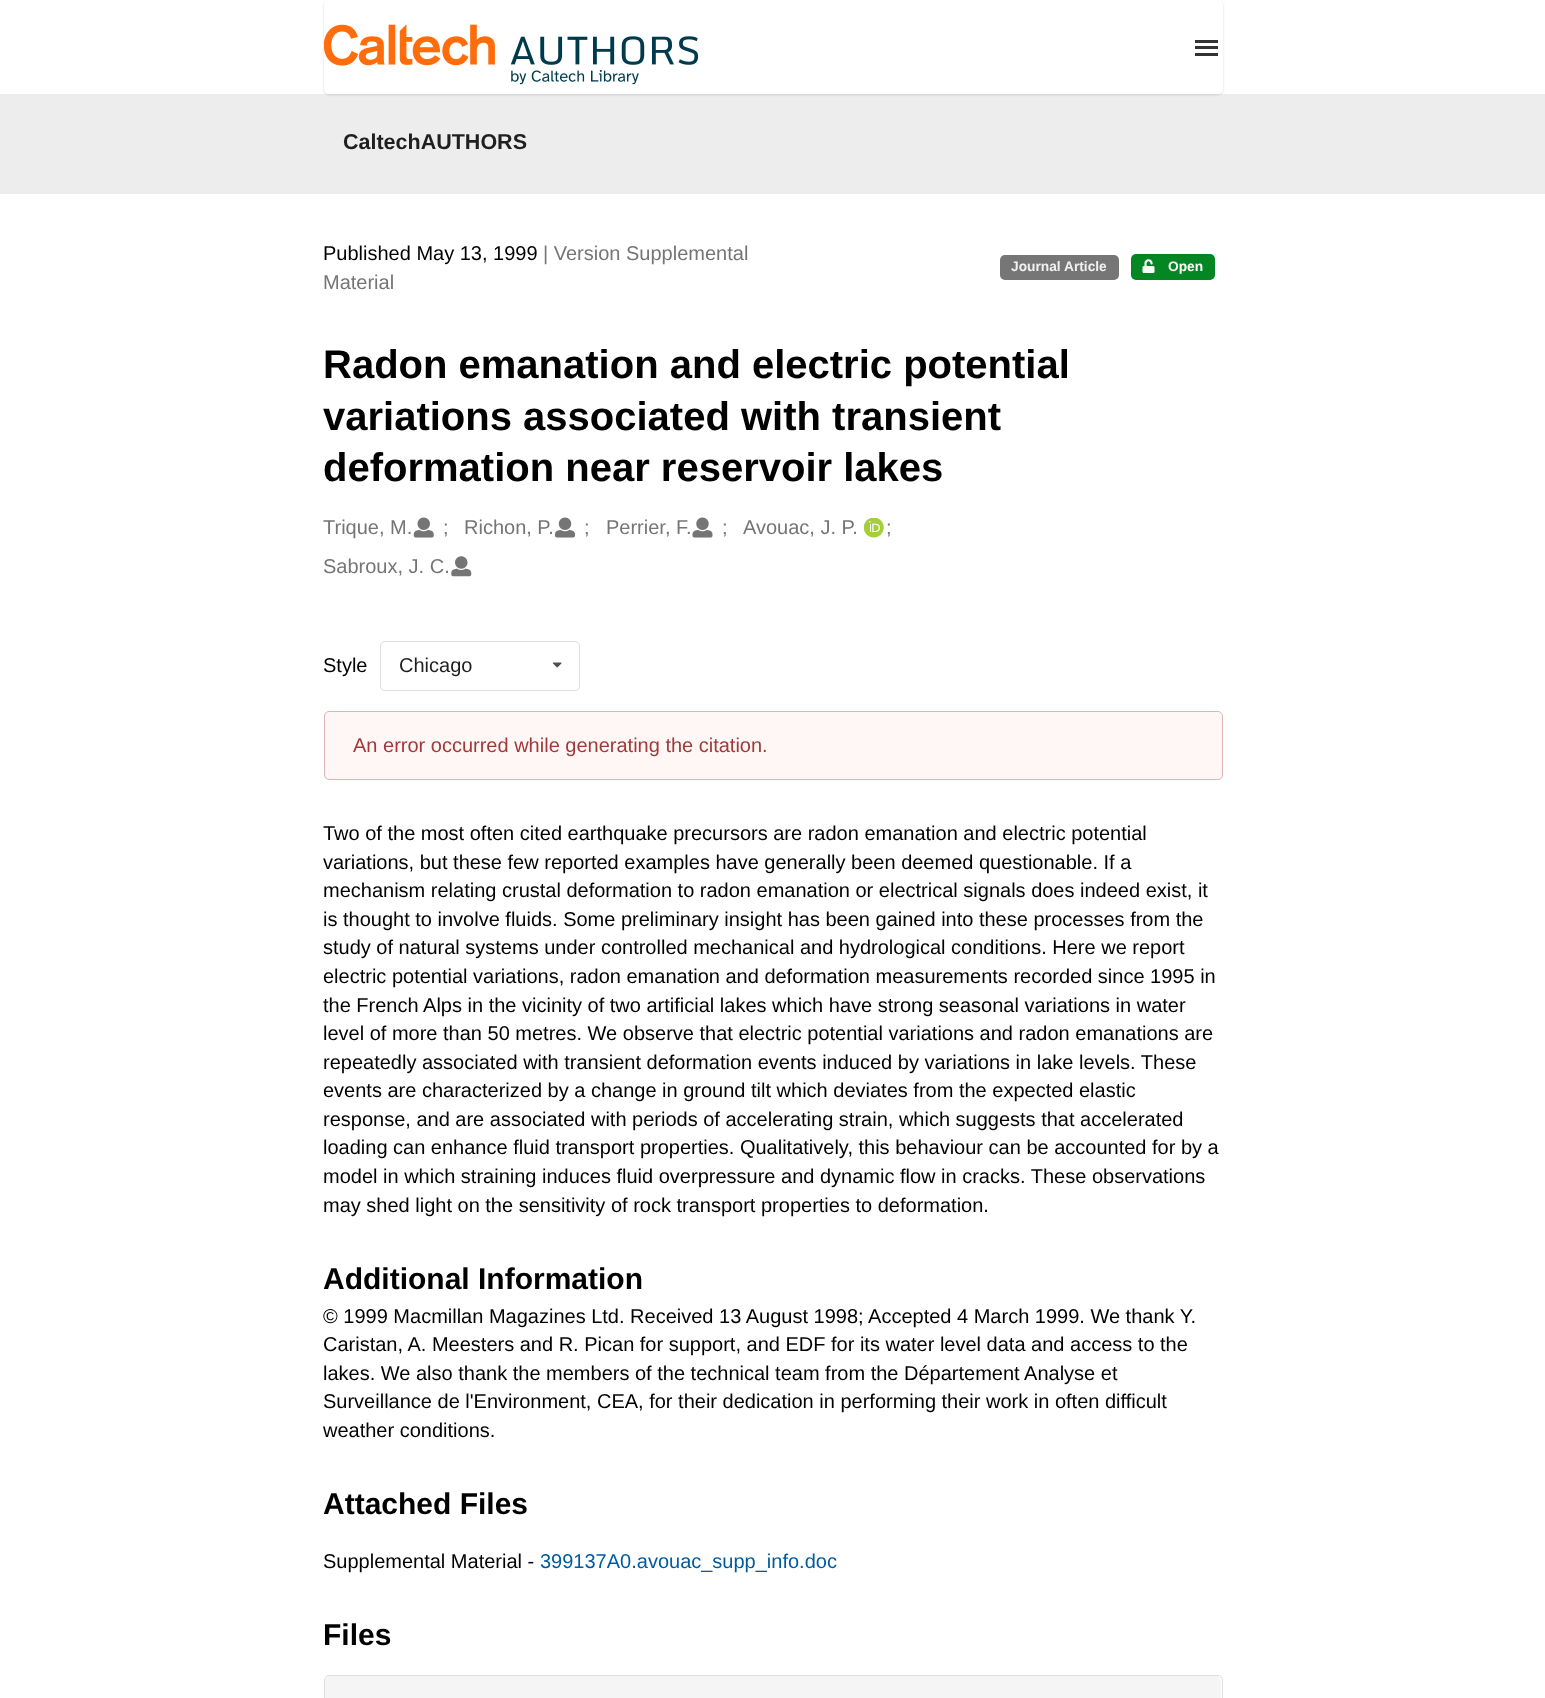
<?xml version="1.0" encoding="UTF-8"?>
<svg xmlns="http://www.w3.org/2000/svg" width="1545" height="1698">
    <defs>
        <clipPath id="clip1"><path d="M 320 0 H 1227 V 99 H 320 Z M 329 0 H 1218 C 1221 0 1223 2 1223 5 V 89 C 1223 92 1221 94 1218 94 H 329 C 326 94 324 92 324 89 V 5 C 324 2 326 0 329 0 Z" clip-rule="evenodd"/></clipPath>
        <filter id="blur1" x="-50%" y="-200%" width="200%" height="500%"><feGaussianBlur stdDeviation="1"/></filter>
    </defs>
    <rect width="100%" height="100%" fill="#FFFFFF"/>
    <rect x="0" y="94" width="1545" height="100" fill="#EDEDED"/>
    <g clip-path="url(#clip1)">
        <rect x="324" y="1" width="899" height="94" rx="5" fill="#222426" fill-opacity="0.15" filter="url(#blur1)"/>
    </g>
    <image x="324" y="24" width="375" height="61" href="img_01.png"/>
    <rect x="1195" y="46" width="23" height="3" fill="#333333"/>
    <rect x="1195" y="40" width="23" height="3" fill="#333333"/>
    <rect x="1195" y="53" width="23" height="3" fill="#333333"/>
    <text x="343" y="149" font-family="Liberation Sans" font-size="21.5" font-weight="700" fill="#1F1F1F">CaltechAUTHORS</text>
    <text x="323" y="260" font-family="Liberation Sans" font-size="20" fill="#000000">Published May 13, 1999</text>
    <text x="543" y="260" font-family="Liberation Sans" font-size="20" fill="#757575">| Version Supplemental</text>
    <text x="323" y="289" font-family="Liberation Sans" font-size="20" fill="#757575">Material</text>
    <rect x="1000" y="255" width="119" height="25" rx="5" fill="#767676"/>
    <text x="1011" y="271" font-family="Liberation Sans" font-size="13.75" font-weight="700" fill="#F1F1F1">Journal Article</text>
    <rect x="1131" y="254" width="84" height="26" rx="5" fill="#048622"/>
    <image x="1142" y="259" width="13" height="14" href="img_02.png"/>
    <text x="1168" y="271" font-family="Liberation Sans" font-size="13.75" font-weight="700" fill="#FFFFFF">Open</text>
    <text font-family="Liberation Sans" font-size="40" font-weight="700" fill="#000000">
        <tspan x="323" y="378">Radon emanation and electric potential</tspan>
        <tspan x="323" y="430">variations associated with transient</tspan>
        <tspan x="323" y="481">deformation near reservoir lakes</tspan>
    </text>
    <text x="323" y="534" font-family="Liberation Sans" font-size="20" fill="#757575">Trique, M.</text>
    <image x="413" y="517" width="21" height="21" href="img_03.png"/>
    <text x="443" y="534" font-family="Liberation Sans" font-size="20" fill="#757575">;</text>
    <text x="464" y="534" font-family="Liberation Sans" font-size="20" fill="#757575">Richon, P.</text>
    <image x="555" y="517" width="20" height="21" href="img_04.png"/>
    <text x="584" y="534" font-family="Liberation Sans" font-size="20" fill="#757575">;</text>
    <text x="606" y="534" font-family="Liberation Sans" font-size="20" fill="#757575">Perrier, F.</text>
    <image x="692" y="517" width="21" height="21" href="img_05.png"/>
    <text x="722" y="534" font-family="Liberation Sans" font-size="20" fill="#757575">;</text>
    <text x="743" y="534" font-family="Liberation Sans" font-size="20" fill="#757575">Avouac, J. P.</text>
    <image x="864" y="518" width="20" height="20" href="img_06.png"/>
    <text x="886" y="534" font-family="Liberation Sans" font-size="20" fill="#757575">;</text>
    <text x="323" y="573" font-family="Liberation Sans" font-size="20" fill="#757575">Sabroux, J. C.</text>
    <image x="451" y="556" width="21" height="21" href="img_07.png"/>
    <text x="323" y="672" font-family="Liberation Sans" font-size="20" fill="#000000">Style</text>
    <rect x="380.5" y="641.5" width="199" height="49" rx="4.5" fill="none" stroke="#DEDEDE"/>
    <text x="399" y="672" font-family="Liberation Sans" font-size="20" fill="#1F1F1F">Chicago</text>
    <image x="552" y="662" width="10" height="6" href="img_08.png"/>
    <rect x="324.5" y="711.5" width="898" height="68" rx="4.5" fill="#FFF6F6" stroke="#E0B4B4"/>
    <text x="353" y="752" font-family="Liberation Sans" font-size="20" fill="#9F3A38">An error occurred while generating the citation.</text>
    <text font-family="Liberation Sans" font-size="20" fill="#000000">
        <tspan x="323" y="840">Two of the most often cited earthquake precursors are radon emanation and electric potential</tspan>
        <tspan x="323" y="869">variations, but these few reported examples have generally been deemed questionable. If a</tspan>
        <tspan x="323" y="897">mechanism relating crustal deformation to radon emanation or electrical signals does indeed exist, it</tspan>
        <tspan x="323" y="926">is thought to involve fluids. Some preliminary insight has been gained into these processes from the</tspan>
        <tspan x="323" y="954">study of natural systems under controlled mechanical and hydrological conditions. Here we report</tspan>
        <tspan x="323" y="983">electric potential variations, radon emanation and deformation measurements recorded since 1995 in</tspan>
        <tspan x="323" y="1012">the French Alps in the vicinity of two artificial lakes which have strong seasonal variations in water</tspan>
        <tspan x="323" y="1040">level of more than 50 metres. We observe that electric potential variations and radon emanations are</tspan>
        <tspan x="323" y="1069">repeatedly associated with transient deformation events induced by variations in lake levels. These</tspan>
        <tspan x="323" y="1097">events are characterized by a change in ground tilt which deviates from the expected elastic</tspan>
        <tspan x="323" y="1126">response, and are associated with periods of accelerating strain, which suggests that accelerated</tspan>
        <tspan x="323" y="1154">loading can enhance fluid transport properties. Qualitatively, this behaviour can be accounted for by a</tspan>
        <tspan x="323" y="1183">model in which straining induces fluid overpressure and dynamic flow in cracks. These observations</tspan>
        <tspan x="323" y="1212">may shed light on the sensitivity of rock transport properties to deformation.</tspan>
    </text>
    <text x="323" y="1289" font-family="Liberation Sans" font-size="30" font-weight="700" fill="#000000">Additional Information</text>
    <text font-family="Liberation Sans" font-size="20" fill="#000000">
        <tspan x="323" y="1323">© 1999 Macmillan Magazines Ltd. Received 13 August 1998; Accepted 4 March 1999. We thank Y.</tspan>
        <tspan x="323" y="1351">Caristan, A. Meesters and R. Pican for support, and EDF for its water level data and access to the</tspan>
        <tspan x="323" y="1380">lakes. We also thank the members of the technical team from the Département Analyse et</tspan>
        <tspan x="323" y="1408">Surveillance de l'Environment, CEA, for their dedication in performing their work in often difficult</tspan>
        <tspan x="323" y="1437">weather conditions.</tspan>
    </text>
    <text x="323" y="1514" font-family="Liberation Sans" font-size="30" font-weight="700" fill="#000000">Attached Files</text>
    <text x="323" y="1568" font-family="Liberation Sans" font-size="20" fill="#000000">Supplemental Material -</text>
    <text x="540" y="1568" font-family="Liberation Sans" font-size="20" fill="#005B9E">399137A0.avouac_supp_info.doc</text>
    <text x="323" y="1645" font-family="Liberation Sans" font-size="30" font-weight="700" fill="#000000">Files</text>
    <rect x="324.5" y="1675.5" width="898" height="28" rx="4.5" fill="none" stroke="#DEDEDE"/>
    <path d="M 330 1676 H 1216 C 1219 1676 1221 1678 1221 1681 V 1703 H 325 V 1681 C 325 1678 327 1676 330 1676 Z" fill="#F5F5F5"/>
</svg>
